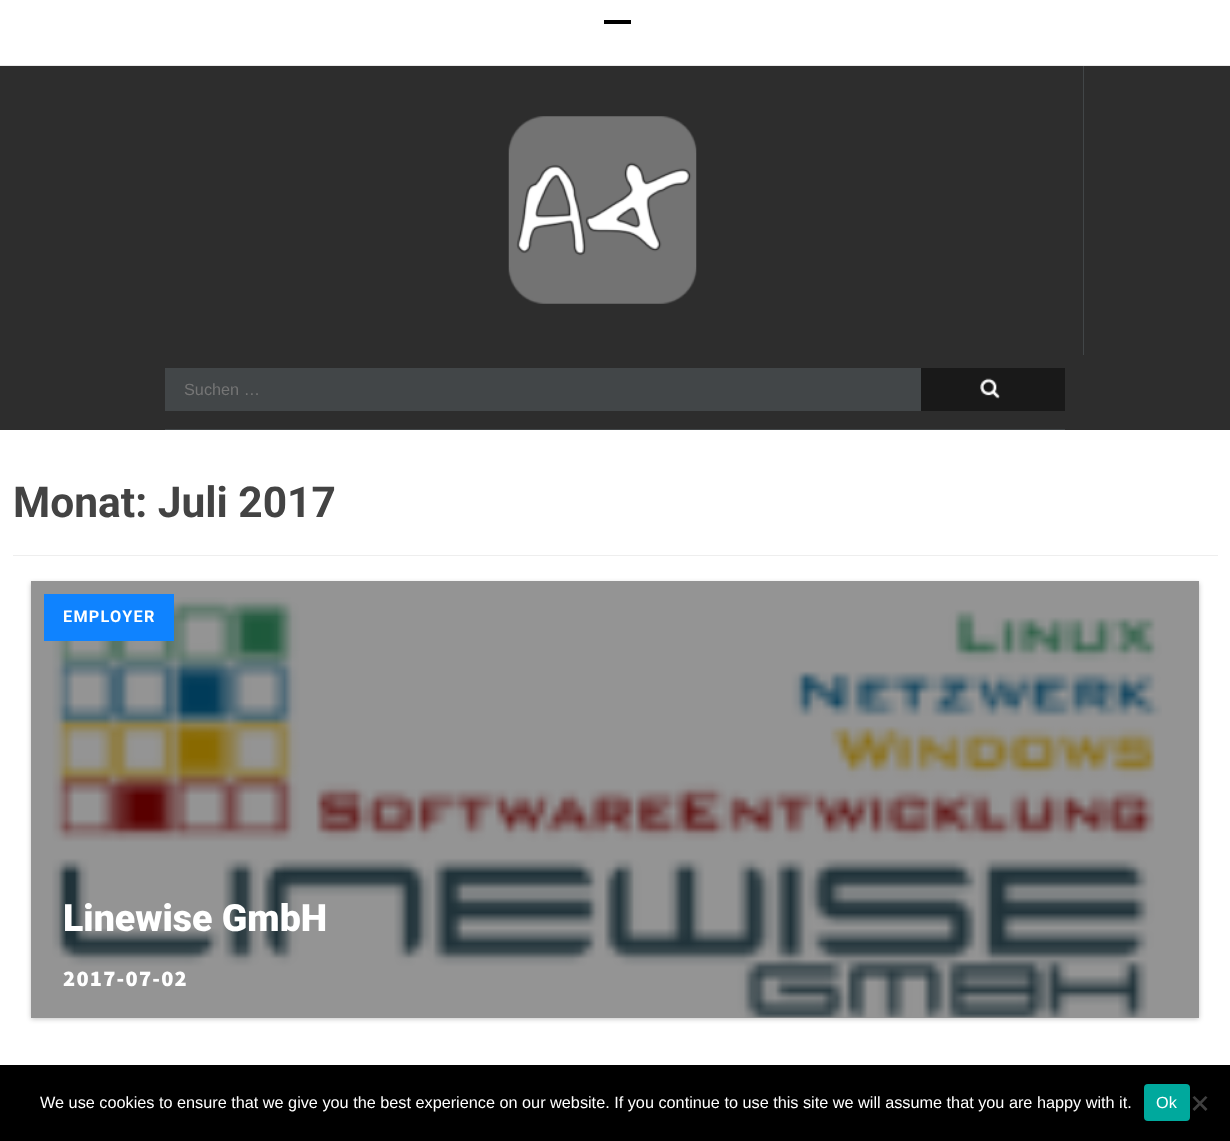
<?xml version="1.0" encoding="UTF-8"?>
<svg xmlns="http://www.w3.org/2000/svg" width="1230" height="1141">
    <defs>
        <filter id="blur1" x="-50%" y="-200%" width="200%" height="500%"><feGaussianBlur stdDeviation="2.5"/></filter>
    </defs>
    <rect width="100%" height="100%" fill="#FFFFFF"/>
    <rect x="0" y="65" width="1230" height="1" fill="#EAEAEA"/>
    <rect x="604" y="20" width="27" height="4" fill="#000000"/>
    <rect x="0" y="66" width="1230" height="364" fill="#2D2D2D"/>
    <rect x="1083" y="66" width="1" height="289" fill="#424648"/>
    <image x="508" y="116" width="189" height="188" href="img_01.png"/>
    <rect x="165" y="429" width="900" height="1" fill="#424648"/>
    <rect x="165" y="368" width="756" height="43" fill="#424648"/>
    <text x="184" y="395" font-family="Liberation Sans" font-size="16.25" fill="#757575">Suchen …</text>
    <rect x="921" y="368" width="144" height="43" fill="#191919"/>
    <image x="980" y="378" width="20" height="21" href="img_02.png"/>
    <rect x="13" y="555" width="1205" height="1" fill="#EEEEEE"/>
    <text x="13" y="517" font-family="Roboto" font-size="42.5" font-weight="700" fill="#434343">Monat: Juli 2017</text>
    <rect x="31" y="583" width="1168" height="436" fill="#000000" fill-opacity="0.23" filter="url(#blur1)"/>
    <rect x="31" y="581" width="1168" height="437" fill="#FFFFFF"/>
    <image x="52" y="597" width="1110" height="421" href="img_03.png"/>
    <rect x="31" y="581" width="1168" height="437" fill="#000000" fill-opacity="0.42"/>
    <rect x="44" y="594" width="130" height="47" fill="#0F83FF"/>
    <text x="63" y="622" font-family="Roboto" font-size="16.25" font-weight="700" letter-spacing="1.25" fill="#FFFFFF">EMPLOYER</text>
    <text x="63" y="931" font-family="Roboto" font-size="37.5" font-weight="900" fill="#FFFFFF">Linewise GmbH</text>
    <text x="63" y="986" font-family="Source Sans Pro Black" font-size="22.5" font-weight="900" letter-spacing="1.25" fill="#FFFFFF">2017-07-02</text>
    <rect x="0" y="1065" width="1230" height="76" fill="#000000"/>
    <text x="40" y="1108" font-family="Liberation Sans" font-size="16.25" fill="#FFFFFF">We use cookies to ensure that we give you the best experience on our website. If you continue to use this site we will assume that you are happy with it.</text>
    <rect x="1144" y="1084" width="46" height="37" rx="4" fill="#00A99D"/>
    <text x="1156" y="1108" font-family="Liberation Sans" font-size="16.25" fill="#FFFFFF">Ok</text>
    <path d="M 1205.5 1096 L 1207.5 1097.5 L 1194.5 1111 L 1192.5 1109 Z" fill="#404040"/>
    <path d="M 1192.5 1097.5 L 1194.5 1096 L 1207.5 1109 L 1205.5 1111 Z" fill="#404040"/>
</svg>
